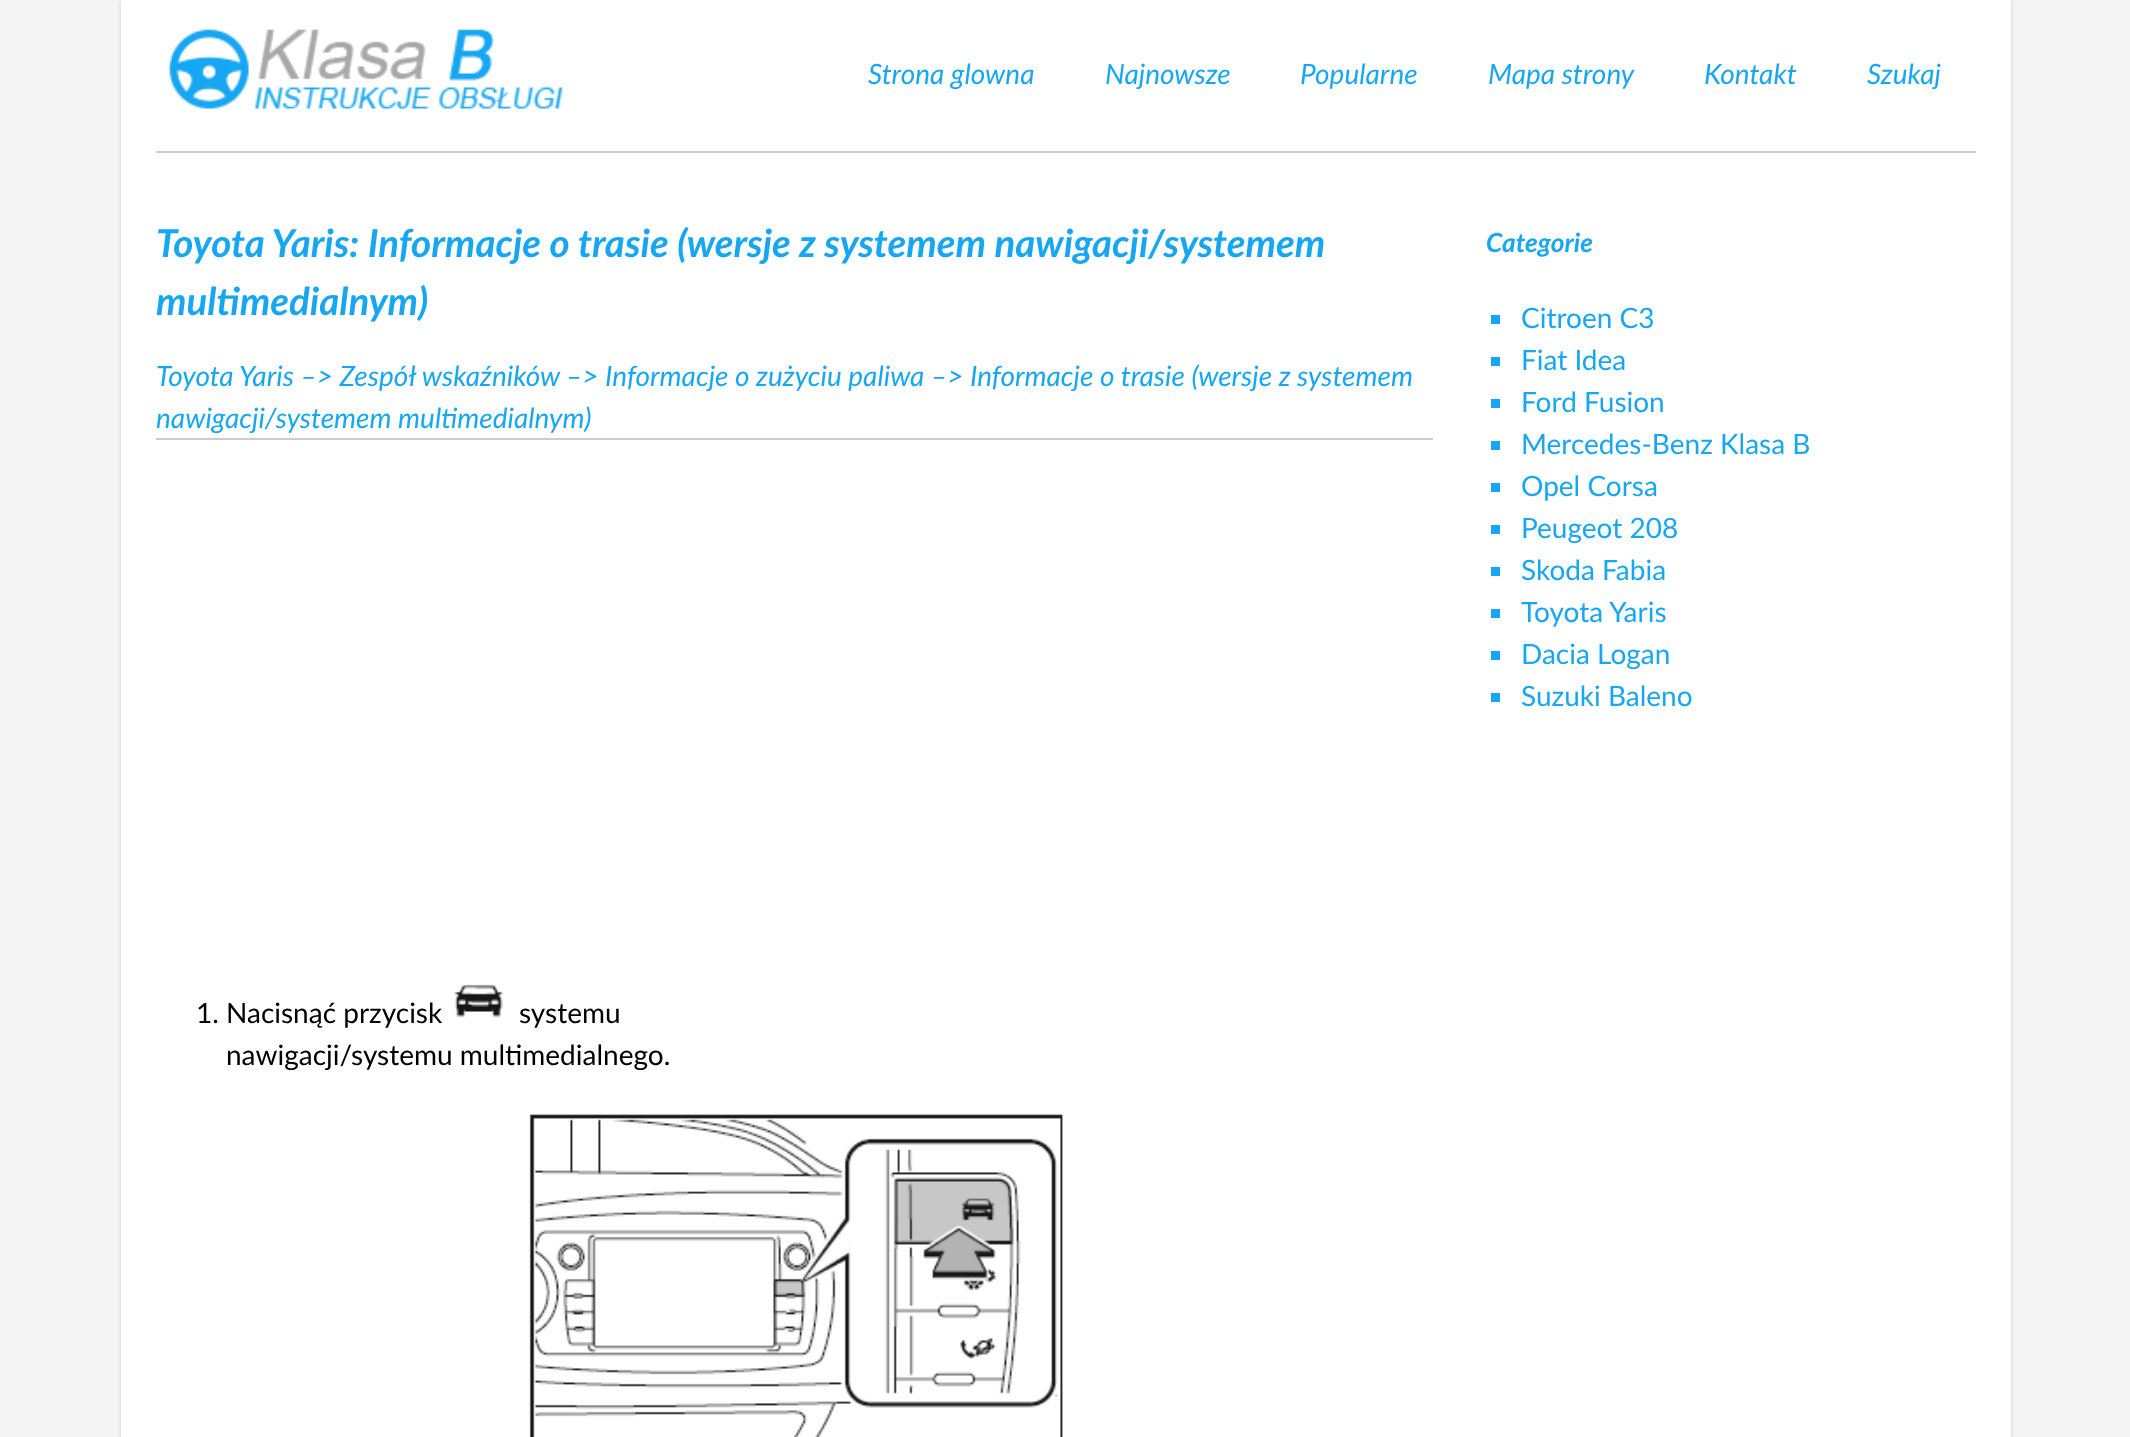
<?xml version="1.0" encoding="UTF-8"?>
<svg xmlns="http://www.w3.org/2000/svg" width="2130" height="1437">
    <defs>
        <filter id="blur1" x="-50%" y="-200%" width="200%" height="500%"><feGaussianBlur stdDeviation="2"/></filter>
    </defs>
    <rect width="100%" height="100%" fill="#F4F4F4"/>
    <rect x="121" y="0" width="1890" height="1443" fill="#CCCCCC" filter="url(#blur1)"/>
    <rect x="121" y="0" width="1890" height="1437" fill="#FFFFFF"/>
    <rect x="156" y="151" width="1820" height="2" fill="#CCCCCC"/>
    <image x="169" y="29" width="395" height="80" href="img_01.png"/>
    <text x="868" y="84" font-family="Lato" font-size="28" font-style="italic" fill="#17A7F2">Strona glowna</text>
    <text x="1105" y="84" font-family="Lato" font-size="28" font-style="italic" fill="#17A7F2">Najnowsze</text>
    <text x="1300" y="84" font-family="Lato" font-size="28" font-style="italic" fill="#17A7F2">Popularne</text>
    <text x="1488" y="84" font-family="Lato" font-size="28" font-style="italic" fill="#17A7F2">Mapa strony</text>
    <text x="1704" y="84" font-family="Lato" font-size="28" font-style="italic" fill="#17A7F2">Kontakt</text>
    <text x="1867" y="84" font-family="Lato" font-size="28" font-style="italic" fill="#17A7F2">Szukaj</text>
    <text font-family="Lato" font-size="38.5" font-weight="700" font-style="italic" fill="#17A7F2">
        <tspan x="156" y="257">Toyota Yaris: Informacje o trasie (wersje z systemem nawigacji/systemem</tspan>
        <tspan x="156" y="315">multimedialnym)</tspan>
    </text>
    <rect x="156" y="438" width="1277" height="2" fill="#CCCCCC"/>
    <text x="156" y="386" font-family="Lato" font-size="28" font-style="italic" fill="#17A7F2">Toyota Yaris –&gt; Zespół wskaźników</text>
    <text x="566" y="386" font-family="Lato" font-size="28" font-style="italic" fill="#17A7F2">–&gt; Informacje o zużyciu paliwa –&gt; Informacje o trasie (wersje z systemem</text>
    <text x="156" y="428" font-family="Lato" font-size="28" font-style="italic" fill="#17A7F2">nawigacji/systemem multimedialnym)</text>
    <text x="196" y="1023" font-family="Lato" font-size="28" fill="#000000">1. Nacisnąć przycisk</text>
    <image x="454" y="984" width="49" height="34" href="img_02.png"/>
    <text x="519" y="1023" font-family="Lato" font-size="28" fill="#000000">systemu</text>
    <text x="226" y="1065" font-family="Lato" font-size="28" fill="#000000">nawigacji/systemu multimedialnego.</text>
    <image x="529" y="1114" width="534" height="323" href="img_03.png"/>
    <text x="1486" y="252" font-family="Lato" font-size="26.25" font-weight="700" font-style="italic" fill="#17A7F2">Categorie</text>
    <rect x="1491" y="315" width="9" height="9" fill="#17A7F2"/>
    <text x="1521" y="328" font-family="Lato" font-size="28" fill="#17A7F2">Citroen C3</text>
    <rect x="1491" y="357" width="9" height="9" fill="#17A7F2"/>
    <text x="1521" y="370" font-family="Lato" font-size="28" fill="#17A7F2">Fiat Idea</text>
    <rect x="1491" y="399" width="9" height="9" fill="#17A7F2"/>
    <text x="1521" y="412" font-family="Lato" font-size="28" fill="#17A7F2">Ford Fusion</text>
    <rect x="1491" y="441" width="9" height="9" fill="#17A7F2"/>
    <text x="1521" y="454" font-family="Lato" font-size="28" fill="#17A7F2">Mercedes-Benz Klasa B</text>
    <rect x="1491" y="483" width="9" height="9" fill="#17A7F2"/>
    <text x="1521" y="496" font-family="Lato" font-size="28" fill="#17A7F2">Opel Corsa</text>
    <rect x="1491" y="525" width="9" height="9" fill="#17A7F2"/>
    <text x="1521" y="538" font-family="Lato" font-size="28" fill="#17A7F2">Peugeot 208</text>
    <rect x="1491" y="567" width="9" height="9" fill="#17A7F2"/>
    <text x="1521" y="580" font-family="Lato" font-size="28" fill="#17A7F2">Skoda Fabia</text>
    <rect x="1491" y="609" width="9" height="9" fill="#17A7F2"/>
    <text x="1521" y="622" font-family="Lato" font-size="28" fill="#17A7F2">Toyota Yaris</text>
    <rect x="1491" y="651" width="9" height="9" fill="#17A7F2"/>
    <text x="1521" y="664" font-family="Lato" font-size="28" fill="#17A7F2">Dacia Logan</text>
    <rect x="1491" y="693" width="9" height="9" fill="#17A7F2"/>
    <text x="1521" y="706" font-family="Lato" font-size="28" fill="#17A7F2">Suzuki Baleno</text>
</svg>
